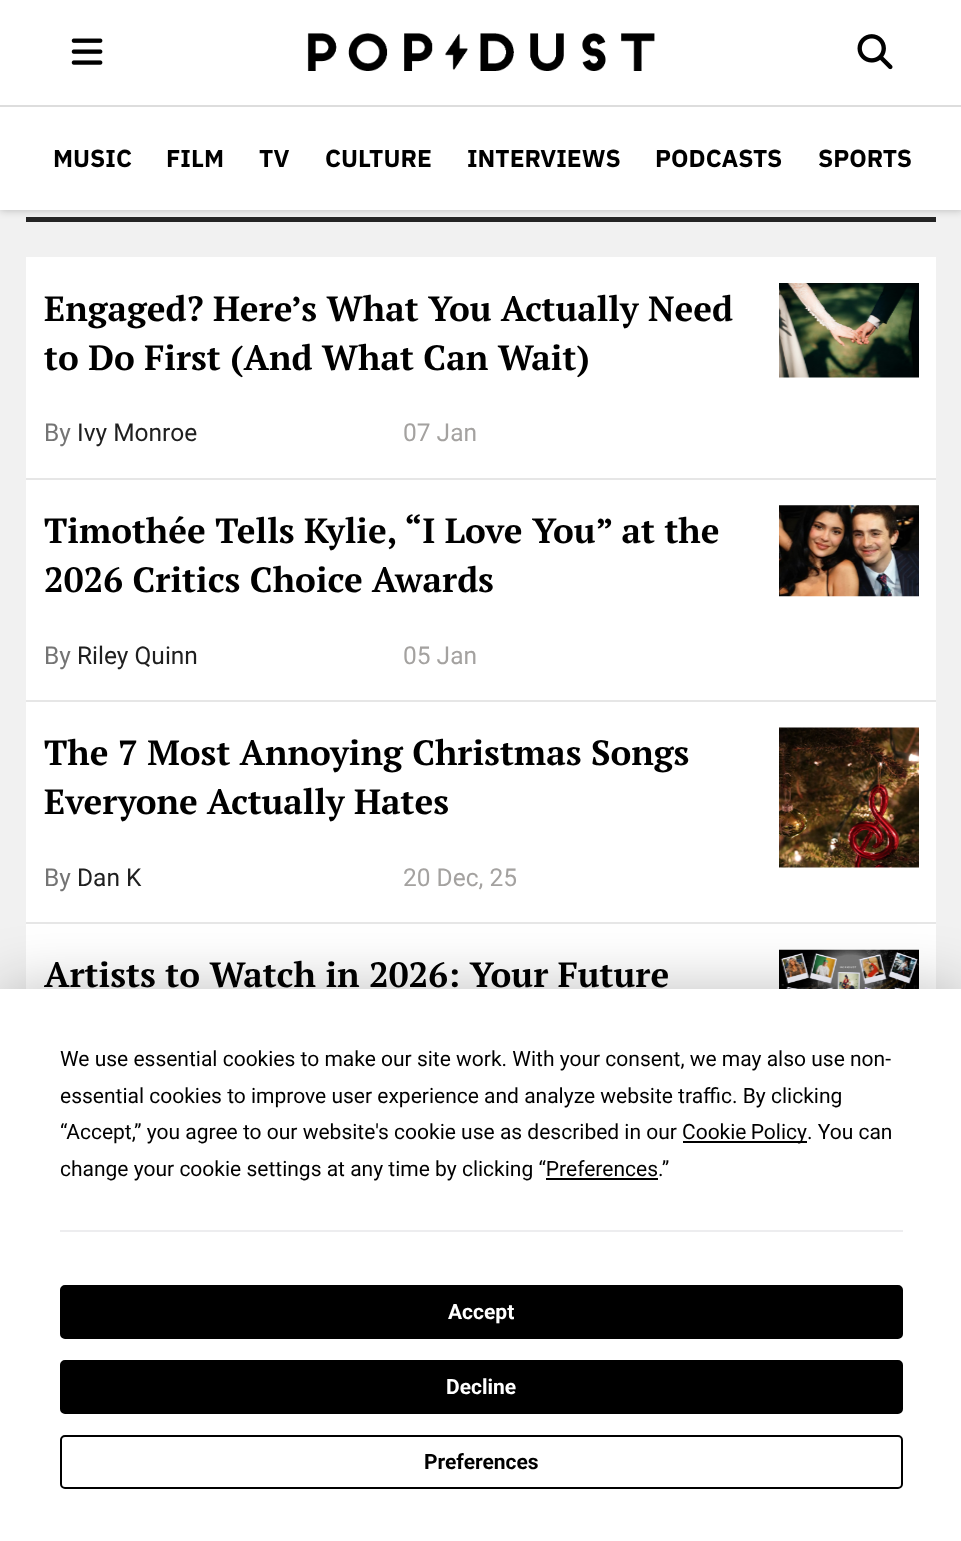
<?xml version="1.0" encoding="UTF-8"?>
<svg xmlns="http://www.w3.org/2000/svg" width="961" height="1541">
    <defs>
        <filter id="blur1" x="-50%" y="-200%" width="200%" height="500%"><feGaussianBlur stdDeviation="4.5"/></filter>
        <filter id="blur2" x="-50%" y="-200%" width="200%" height="500%"><feGaussianBlur stdDeviation="30.5"/></filter>
    </defs>
    <rect width="100%" height="100%" fill="#F1F1F1"/>
    <rect x="26" y="217" width="910" height="5" fill="#242424"/>
    <rect x="0" y="0" width="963" height="210" fill="#000000" fill-opacity="0.25" filter="url(#blur1)"/>
    <rect x="0" y="0" width="961" height="210" fill="#FFFFFF"/>
    <image x="71" y="38" width="32" height="27" href="img_01.png"/>
    <image x="307" y="33" width="348" height="38" href="img_02.png"/>
    <image x="857" y="34" width="36" height="36" href="img_03.png"/>
    <rect x="0" y="105" width="961" height="2" fill="#DDDDDD"/>
    <text x="53" y="167" font-family="IBM Plex Sans" font-size="24.5" font-weight="700" fill="#000000">MUSIC</text>
    <text x="166" y="167" font-family="IBM Plex Sans" font-size="24.5" font-weight="700" fill="#000000">FILM</text>
    <text x="259" y="167" font-family="IBM Plex Sans" font-size="24.5" font-weight="700" fill="#000000">TV</text>
    <text x="325" y="167" font-family="IBM Plex Sans" font-size="24.5" font-weight="700" fill="#000000">CULTURE</text>
    <text x="467" y="167" font-family="IBM Plex Sans" font-size="24.5" font-weight="700" fill="#000000">INTERVIEWS</text>
    <text x="655" y="167" font-family="IBM Plex Sans" font-size="24.5" font-weight="700" fill="#000000">PODCASTS</text>
    <text x="818" y="167" font-family="IBM Plex Sans" font-size="24.5" font-weight="700" fill="#000000">SPORTS</text>
    <rect x="26" y="257" width="910" height="732" fill="#FFFFFF"/>
    <rect x="26" y="478" width="910" height="2" fill="#E6E6E6"/>
    <text font-family="PT Serif" font-size="35" font-weight="700" fill="#000000">
        <tspan x="44" y="321">Engaged? Here’s What You Actually Need</tspan>
        <tspan x="44" y="370">to Do First (And What Can Wait)</tspan>
    </text>
    <text x="44" y="441" font-family="Roboto" font-size="24.5" fill="#747474">By</text>
    <text x="77" y="441" font-family="Roboto" font-size="24.5" fill="#1F1F1F">Ivy Monroe</text>
    <text x="403" y="441" font-family="Roboto" font-size="24.5" fill="#A4A2A0">07 Jan</text>
    <image x="779" y="283" width="140" height="95" href="img_04.png"/>
    <rect x="26" y="700" width="910" height="2" fill="#E6E6E6"/>
    <text font-family="PT Serif" font-size="35" font-weight="700" fill="#000000">
        <tspan x="44" y="543">Timothée Tells Kylie, “I Love You” at the</tspan>
        <tspan x="44" y="592">2026 Critics Choice Awards</tspan>
    </text>
    <text x="44" y="664" font-family="Roboto" font-size="24.5" fill="#747474">By</text>
    <text x="77" y="664" font-family="Roboto" font-size="24.5" fill="#1F1F1F">Riley Quinn</text>
    <text x="403" y="664" font-family="Roboto" font-size="24.5" fill="#A4A2A0">05 Jan</text>
    <image x="779" y="505" width="140" height="92" href="img_05.png"/>
    <rect x="26" y="922" width="910" height="2" fill="#E6E6E6"/>
    <text font-family="PT Serif" font-size="35" font-weight="700" fill="#000000">
        <tspan x="44" y="765">The 7 Most Annoying Christmas Songs</tspan>
        <tspan x="44" y="814">Everyone Actually Hates</tspan>
    </text>
    <text x="44" y="886" font-family="Roboto" font-size="24.5" fill="#747474">By</text>
    <text x="77" y="886" font-family="Roboto" font-size="24.5" fill="#1F1F1F">Dan K</text>
    <text x="403" y="886" font-family="Roboto" font-size="24.5" fill="#A4A2A0">20 Dec, 25</text>
    <image x="779" y="727" width="140" height="141" href="img_06.png"/>
    <text x="44" y="987" font-family="PT Serif" font-size="35" font-weight="700" fill="#000000">Artists to Watch in 2026: Your Future</text>
    <image x="779" y="949" width="140" height="40" href="img_07.png"/>
    <rect x="0" y="989" width="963" height="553" fill="#000000" fill-opacity="0.25" filter="url(#blur2)"/>
    <rect x="0" y="989" width="961" height="552" fill="#FFFFFF"/>
    <text font-family="Roboto" font-size="21" fill="#000000">
        <tspan x="60" y="1066">We use essential cookies to make our site work. With your consent, we may also use non-</tspan>
        <tspan x="60" y="1103">essential cookies to improve user experience and analyze website traffic. By clicking</tspan>
        <tspan x="60" y="1139">“Accept,” you agree to our website's cookie use as described in our</tspan>
    </text>
    <rect x="683" y="1141" width="124" height="2" fill="#000000"/>
    <text x="682" y="1139" word-spacing="-1" font-family="Roboto" font-size="21" fill="#000000">Cookie Policy</text>
    <text x="807" y="1139" font-family="Roboto" font-size="21" fill="#000000">. You can</text>
    <text x="60" y="1176" font-family="Roboto" font-size="21" fill="#000000">change your cookie settings at any time by clicking “Preferences.”</text>
    <rect x="546" y="1178" width="112" height="2" fill="#000000"/>
    <rect x="60" y="1230" width="843" height="2" fill="#EDEDEF"/>
    <rect x="61" y="1286" width="841" height="52" rx="4" fill="#000000" stroke="#000000" stroke-width="2"/>
    <text x="448" y="1319" font-family="Roboto" font-size="21" font-weight="700" fill="#FFFFFF">Accept</text>
    <rect x="61" y="1361" width="841" height="52" rx="4" fill="#000000" stroke="#000000" stroke-width="2"/>
    <text x="446" y="1394" font-family="Roboto" font-size="21" font-weight="700" fill="#FFFFFF">Decline</text>
    <rect x="61" y="1436" width="841" height="52" rx="4" fill="none" stroke="#000000" stroke-width="2"/>
    <text x="424" y="1469" font-family="Roboto" font-size="21" font-weight="700" fill="#000000">Preferences</text>
</svg>
